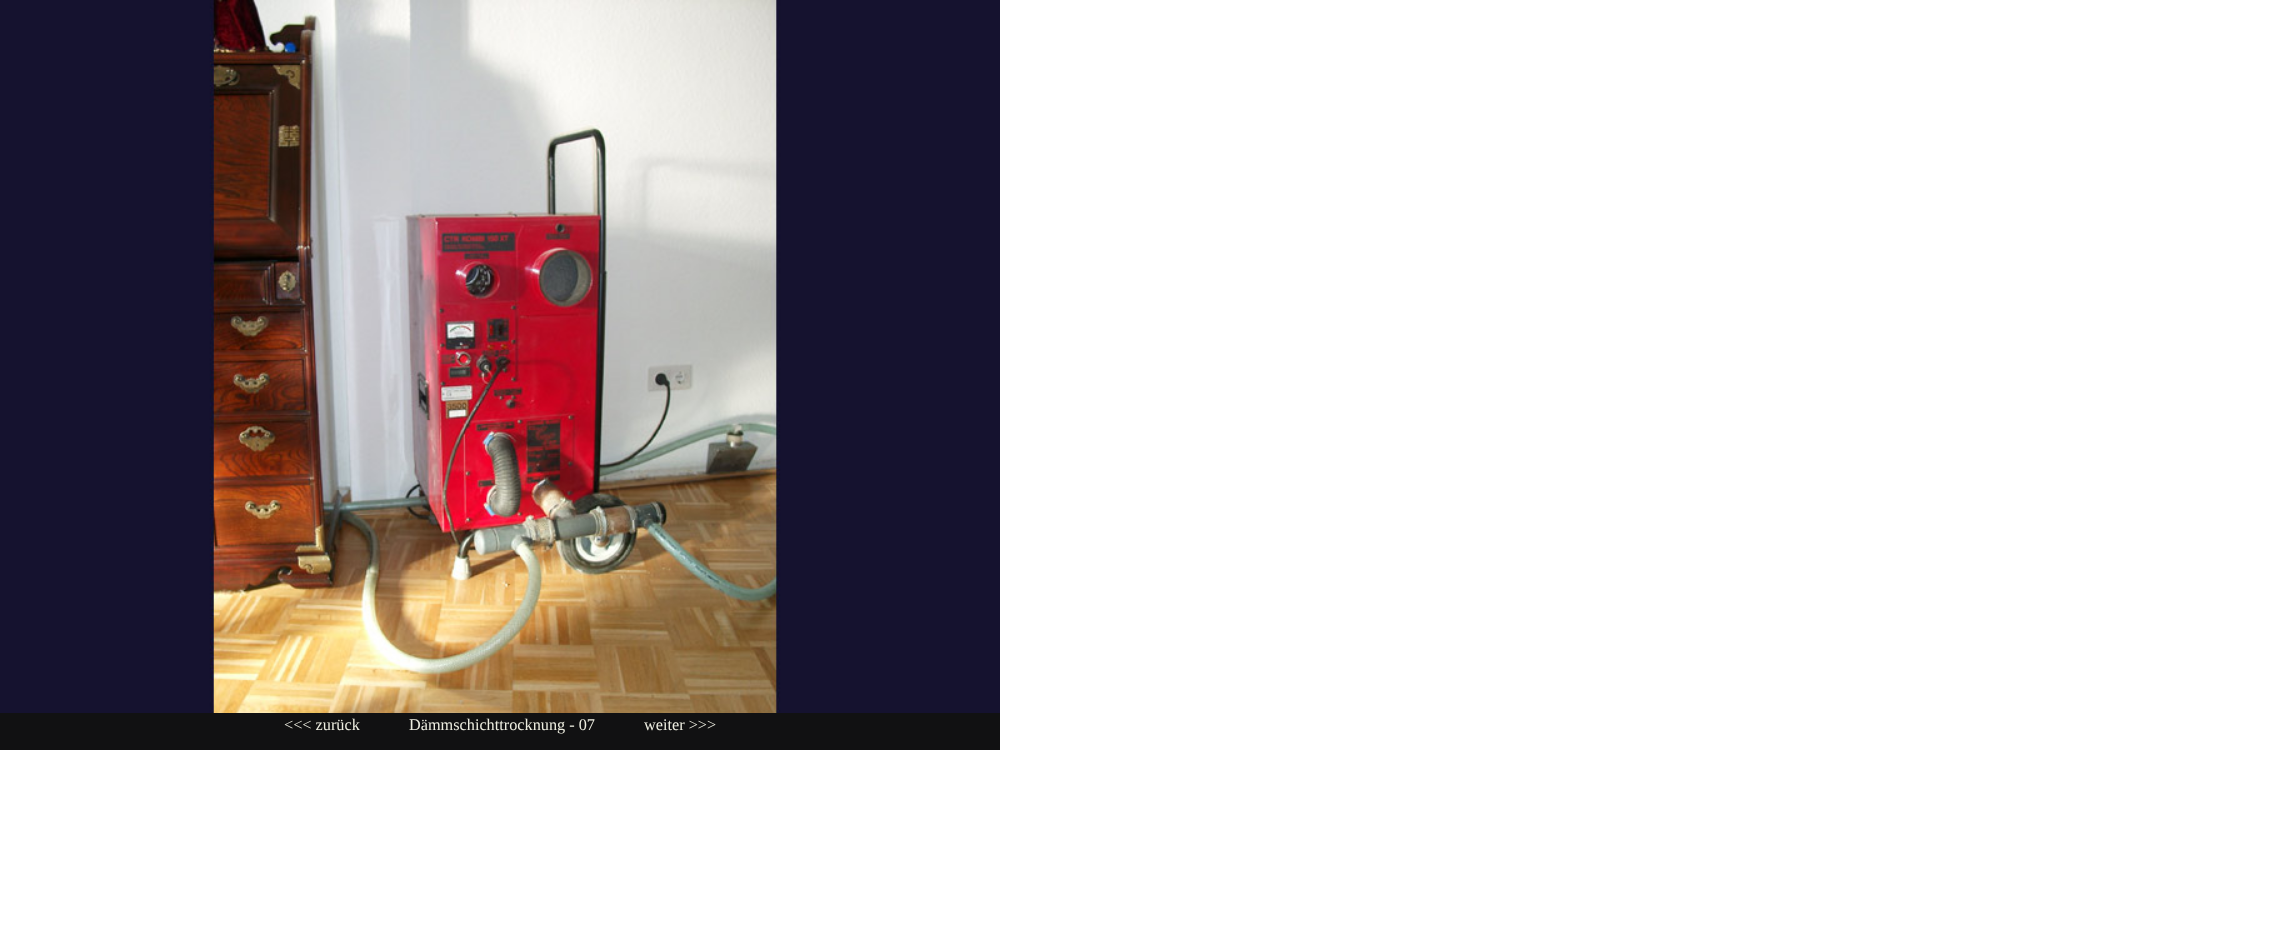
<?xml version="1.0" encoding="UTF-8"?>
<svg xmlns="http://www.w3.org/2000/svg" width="2273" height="925">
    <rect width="100%" height="100%" fill="#FFFFFF"/>
    <image x="0" y="0" width="1000" height="713" href="img_01.png"/>
    <rect x="0" y="713" width="1000" height="37" fill="#111112"/>
    <text x="284" y="730" font-family="Liberation Serif" font-size="16.25" fill="#EEEEE1">&lt;&lt;&lt; zurück</text>
    <text x="409" y="730" font-family="Liberation Serif" font-size="16.25" fill="#EEEEE1">Dämmschichttrocknung - 07</text>
    <text x="644" y="730" font-family="Liberation Serif" font-size="16.25" fill="#EEEEE1">weiter &gt;&gt;&gt;</text>
</svg>
